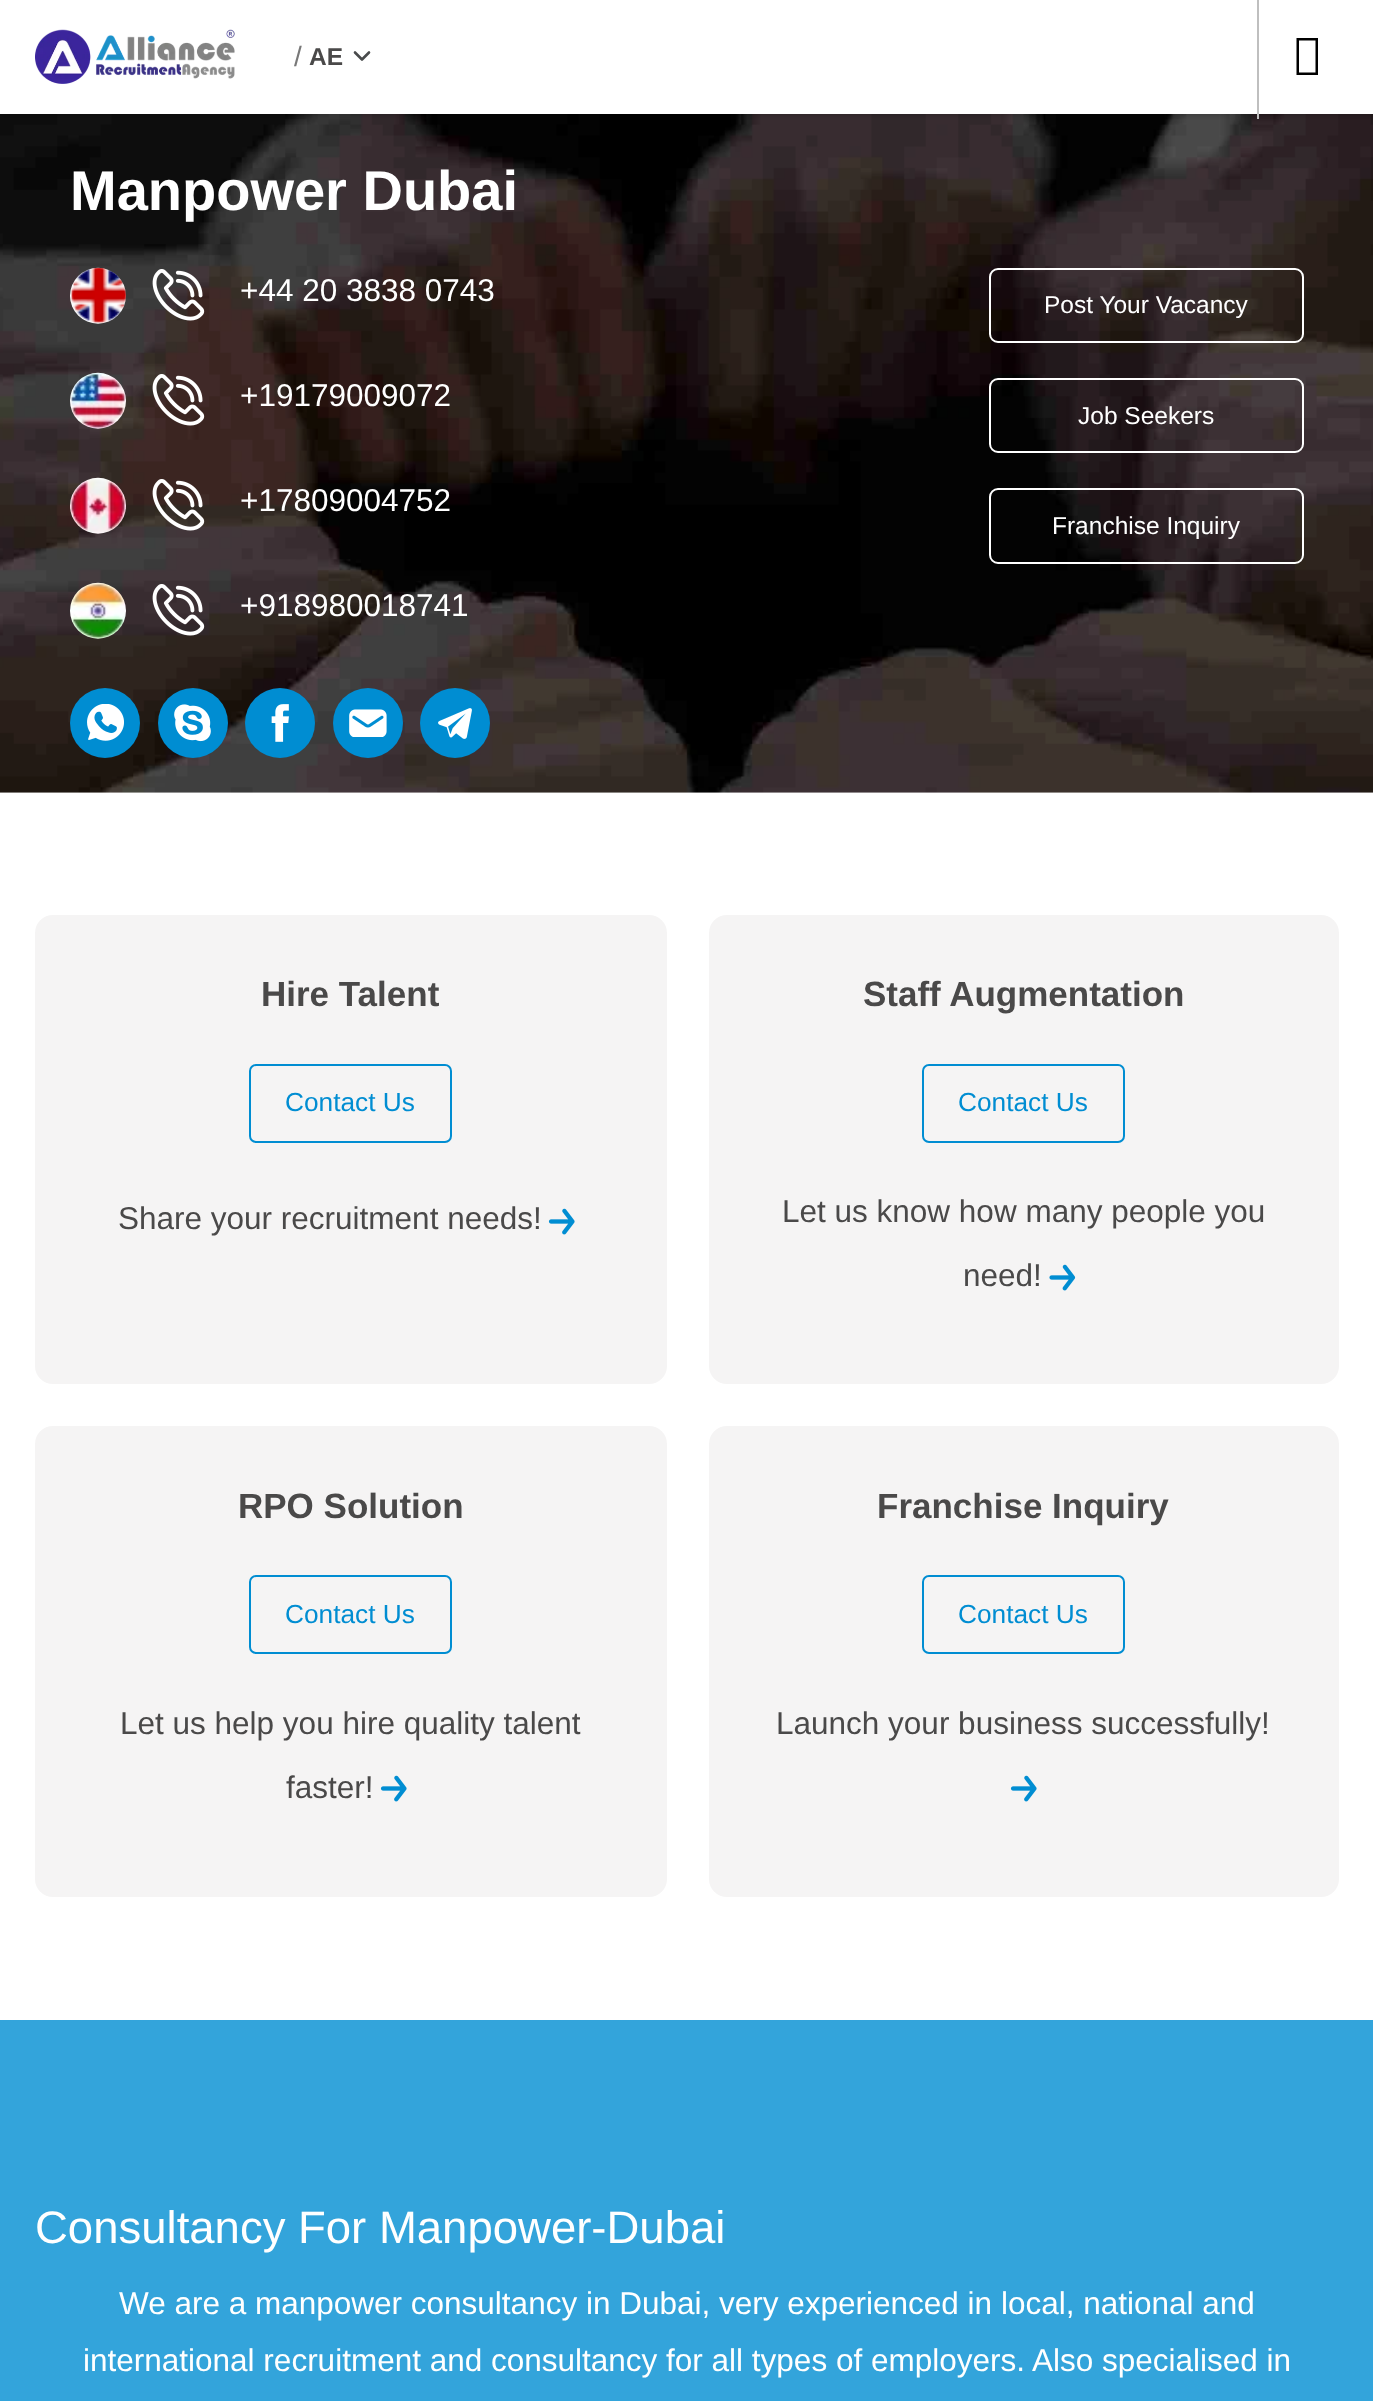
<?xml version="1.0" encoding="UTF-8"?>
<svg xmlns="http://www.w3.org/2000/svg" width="1373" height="2401">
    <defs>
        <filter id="blur1" x="-50%" y="-200%" width="200%" height="500%"><feGaussianBlur stdDeviation="2.5"/></filter>
    </defs>
    <rect width="100%" height="100%" fill="#FFFFFF"/>
    <image x="0" y="114" width="1373" height="679" href="img_02.png"/>
    <rect x="2" y="2" width="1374" height="114" fill="#000000" fill-opacity="0.16" filter="url(#blur1)"/>
    <rect x="0" y="0" width="1373" height="114" fill="#FFFFFF"/>
    <image x="35" y="29" width="200" height="55" href="img_01.png"/>
    <text x="294" y="66" font-family="Liberation Sans" font-size="28" fill="#787878">/</text>
    <text x="309" y="65" font-family="Liberation Sans" font-size="24.5" font-weight="700" fill="#4A4949">AE</text>
    <path d="M 355 52.5 L 362 59.5 L 369 52.5" fill="none" stroke="#494B4C" stroke-width="2.6" stroke-linecap="round" stroke-linejoin="round"/>
    <rect x="1257" y="0" width="2" height="119" fill="#BFBFBF"/>
    <path d="M 1296.5 75 V 38 H 1318 V 75 Z M 1299 72.5 H 1315.5 V 40.5 H 1299 Z" fill="#000000"/>
    <text x="70" y="210" font-family="Liberation Sans" font-size="56" font-weight="700" fill="#FFFFFF">Manpower Dubai</text>
    <image x="70" y="267" width="56" height="57" href="img_03.png"/>
    <image x="152" y="269" width="53" height="52" href="img_04.png"/>
    <text x="240" y="301" font-family="Liberation Sans" font-size="31.5" fill="#FFFFFF">+44 20 3838 0743</text>
    <image x="70" y="372" width="56" height="57" href="img_05.png"/>
    <image x="152" y="374" width="53" height="52" href="img_06.png"/>
    <text x="240" y="406" font-family="Liberation Sans" font-size="31.5" fill="#FFFFFF">+19179009072</text>
    <image x="70" y="477" width="56" height="57" href="img_07.png"/>
    <image x="152" y="479" width="53" height="52" href="img_08.png"/>
    <text x="240" y="511" font-family="Liberation Sans" font-size="31.5" fill="#FFFFFF">+17809004752</text>
    <image x="70" y="582" width="56" height="57" href="img_09.png"/>
    <image x="152" y="584" width="53" height="52" href="img_10.png"/>
    <text x="240" y="616" font-family="Liberation Sans" font-size="31.5" fill="#FFFFFF">+918980018741</text>
    <circle cx="105" cy="723" r="35" fill="#008DD2"/>
    <image x="87" y="704" width="37" height="37" href="img_11.png"/>
    <circle cx="193" cy="723" r="35" fill="#008DD2"/>
    <image x="174" y="704" width="37" height="38" href="img_12.png"/>
    <circle cx="280" cy="723" r="35" fill="#008DD2"/>
    <image x="271" y="704" width="18" height="38" href="img_13.png"/>
    <circle cx="368" cy="723" r="35" fill="#008DD2"/>
    <image x="349" y="709" width="38" height="28" href="img_14.png"/>
    <circle cx="455" cy="723" r="35" fill="#008DD2"/>
    <image x="438" y="708" width="34" height="31" href="img_15.png"/>
    <rect x="990" y="269" width="313" height="73" rx="8" fill="none" stroke="#FFFFFF" stroke-width="2"/>
    <text x="1044" y="313" font-family="Liberation Sans" font-size="24.5" fill="#FFFFFF">Post Your Vacancy</text>
    <rect x="990" y="379" width="313" height="73" rx="8" fill="none" stroke="#FFFFFF" stroke-width="2"/>
    <text x="1078" y="424" font-family="Liberation Sans" font-size="24.5" fill="#FFFFFF">Job Seekers</text>
    <rect x="990" y="489" width="313" height="74" rx="8" fill="none" stroke="#FFFFFF" stroke-width="2"/>
    <text x="1052" y="534" font-family="Liberation Sans" font-size="24.5" fill="#FFFFFF">Franchise Inquiry</text>
    <rect x="35" y="915" width="632" height="469" rx="18" fill="#F5F4F4"/>
    <text x="261" y="1006" font-family="Liberation Sans" font-size="35" font-weight="700" fill="#4A4949">Hire Talent</text>
    <rect x="250" y="1065" width="201" height="77" rx="6" fill="none" stroke="#008DD2" stroke-width="2"/>
    <text x="285" y="1111" font-family="Liberation Sans" font-size="26.25" fill="#008DD2">Contact Us</text>
    <text x="118" y="1229" font-family="Liberation Sans" font-size="31.5" fill="#4A4949">Share your recruitment needs!</text>
    <image x="548" y="1208" width="27" height="27" href="img_16.png"/>
    <rect x="709" y="915" width="630" height="469" rx="18" fill="#F5F4F4"/>
    <text x="863" y="1006" font-family="Liberation Sans" font-size="35" font-weight="700" fill="#4A4949">Staff Augmentation</text>
    <rect x="923" y="1065" width="201" height="77" rx="6" fill="none" stroke="#008DD2" stroke-width="2"/>
    <text x="958" y="1111" font-family="Liberation Sans" font-size="26.25" fill="#008DD2">Contact Us</text>
    <text x="782" y="1222" font-family="Liberation Sans" font-size="31.5" fill="#4A4949">Let us know how many people you</text>
    <text x="963" y="1286" font-family="Liberation Sans" font-size="31.5" fill="#4A4949">need!</text>
    <image x="1049" y="1264" width="27" height="27" href="img_17.png"/>
    <rect x="35" y="1426" width="632" height="471" rx="18" fill="#F5F4F4"/>
    <text x="238" y="1518" font-family="Liberation Sans" font-size="35" font-weight="700" fill="#4A4949">RPO Solution</text>
    <rect x="250" y="1576" width="201" height="77" rx="6" fill="none" stroke="#008DD2" stroke-width="2"/>
    <text x="285" y="1623" font-family="Liberation Sans" font-size="26.25" fill="#008DD2">Contact Us</text>
    <text x="120" y="1734" font-family="Liberation Sans" font-size="31.5" fill="#4A4949">Let us help you hire quality talent</text>
    <text x="286" y="1798" font-family="Liberation Sans" font-size="31.5" fill="#4A4949">faster!</text>
    <image x="380" y="1775" width="27" height="27" href="img_16.png"/>
    <rect x="709" y="1426" width="630" height="471" rx="18" fill="#F5F4F4"/>
    <text x="877" y="1518" font-family="Liberation Sans" font-size="35" font-weight="700" fill="#4A4949">Franchise Inquiry</text>
    <rect x="923" y="1576" width="201" height="77" rx="6" fill="none" stroke="#008DD2" stroke-width="2"/>
    <text x="958" y="1623" font-family="Liberation Sans" font-size="26.25" fill="#008DD2">Contact Us</text>
    <text x="776" y="1734" font-family="Liberation Sans" font-size="31.5" fill="#4A4949">Launch your business successfully!</text>
    <image x="1010" y="1775" width="27" height="27" href="img_16.png"/>
    <rect x="0" y="2020" width="1373" height="381" fill="#33A4DB"/>
    <text x="35" y="2243" font-family="Liberation Sans" font-size="45.5" fill="#FFFFFF">Consultancy For Manpower-Dubai</text>
    <text x="119" y="2314" font-family="Liberation Sans" font-size="31.5" fill="#FFFFFF">We are a manpower consultancy in Dubai, very experienced in local, national and</text>
    <text x="83" y="2371" font-family="Liberation Sans" font-size="31.5" fill="#FFFFFF">international recruitment and consultancy for all types of employers. Also specialised in</text>
</svg>
